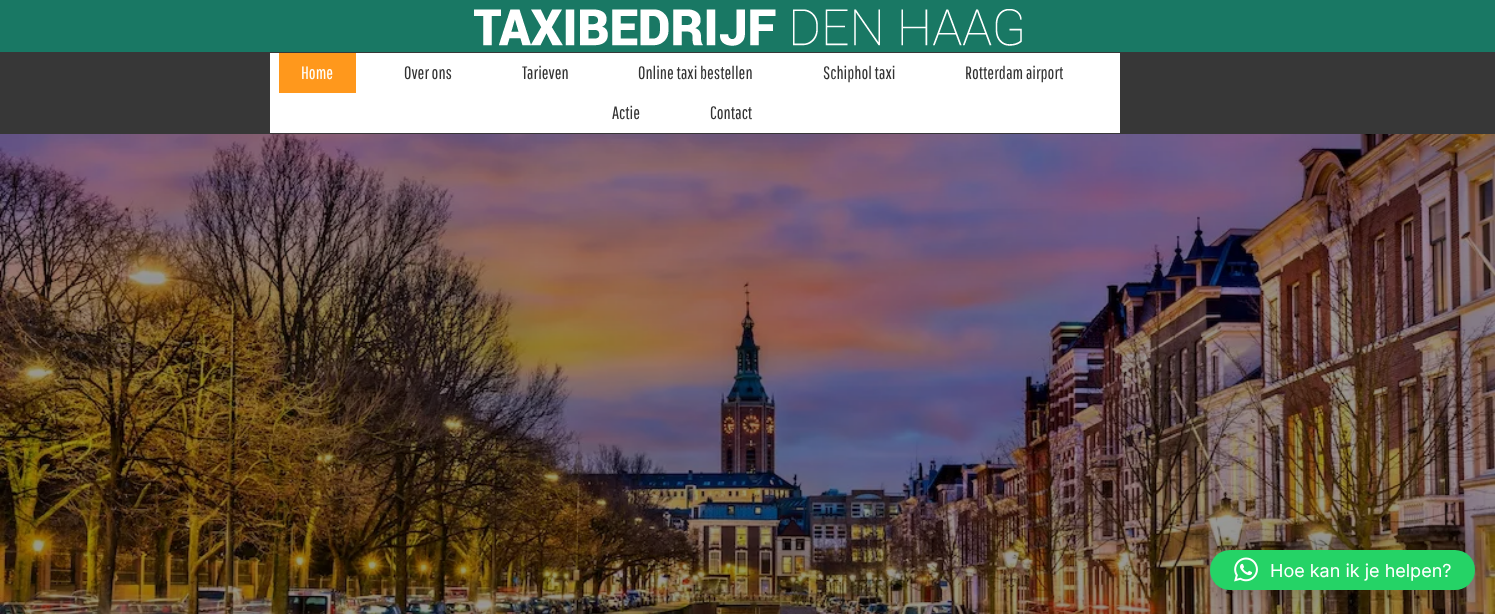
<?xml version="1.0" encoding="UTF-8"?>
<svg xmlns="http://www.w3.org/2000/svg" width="1495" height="614">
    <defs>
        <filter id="blur1" x="-50%" y="-200%" width="200%" height="500%"><feGaussianBlur stdDeviation="16"/></filter>
    </defs>
    <rect width="100%" height="100%" fill="#FFFFFF"/>
    <rect x="0" y="0" width="1495" height="52" fill="#197864"/>
    <rect x="0" y="52" width="1495" height="82" fill="#373737"/>
    <image x="474" y="9" width="548" height="37" href="img_01.png"/>
    <rect x="270" y="53" width="850" height="80" fill="#FFFFFF"/>
    <rect x="279" y="53" width="77" height="40" fill="#FF981C"/>
    <text x="301" y="79" font-family="Pathway Gothic One" font-size="18" fill="#FFFFFF">Home</text>
    <text x="404" y="79" font-family="Pathway Gothic One" font-size="18" fill="#333333">Over ons</text>
    <text x="522" y="79" font-family="Pathway Gothic One" font-size="18" fill="#333333">Tarieven</text>
    <text x="638" y="79" font-family="Pathway Gothic One" font-size="18" fill="#333333">Online taxi bestellen</text>
    <text x="823" y="79" font-family="Pathway Gothic One" font-size="18" fill="#333333">Schiphol taxi</text>
    <text x="965" y="79" font-family="Pathway Gothic One" font-size="18" fill="#333333">Rotterdam airport</text>
    <text x="612" y="119" font-family="Pathway Gothic One" font-size="18" fill="#333333">Actie</text>
    <text x="710" y="119" font-family="Pathway Gothic One" font-size="18" fill="#333333">Contact</text>
    <image x="0" y="134" width="1495" height="480" href="img_02.png"/>
    <rect x="1210" y="552" width="265" height="40" rx="20" fill="#000000" fill-opacity="0.16" filter="url(#blur1)"/>
    <rect x="1210" y="550" width="265" height="40" rx="20" fill="#25D366"/>
    <image x="1234" y="557" width="24" height="25" href="img_03.png"/>
    <text x="1270" y="577" font-family="Inter" font-size="18" fill="#FFFFFF">Hoe kan ik je helpen?</text>
</svg>
